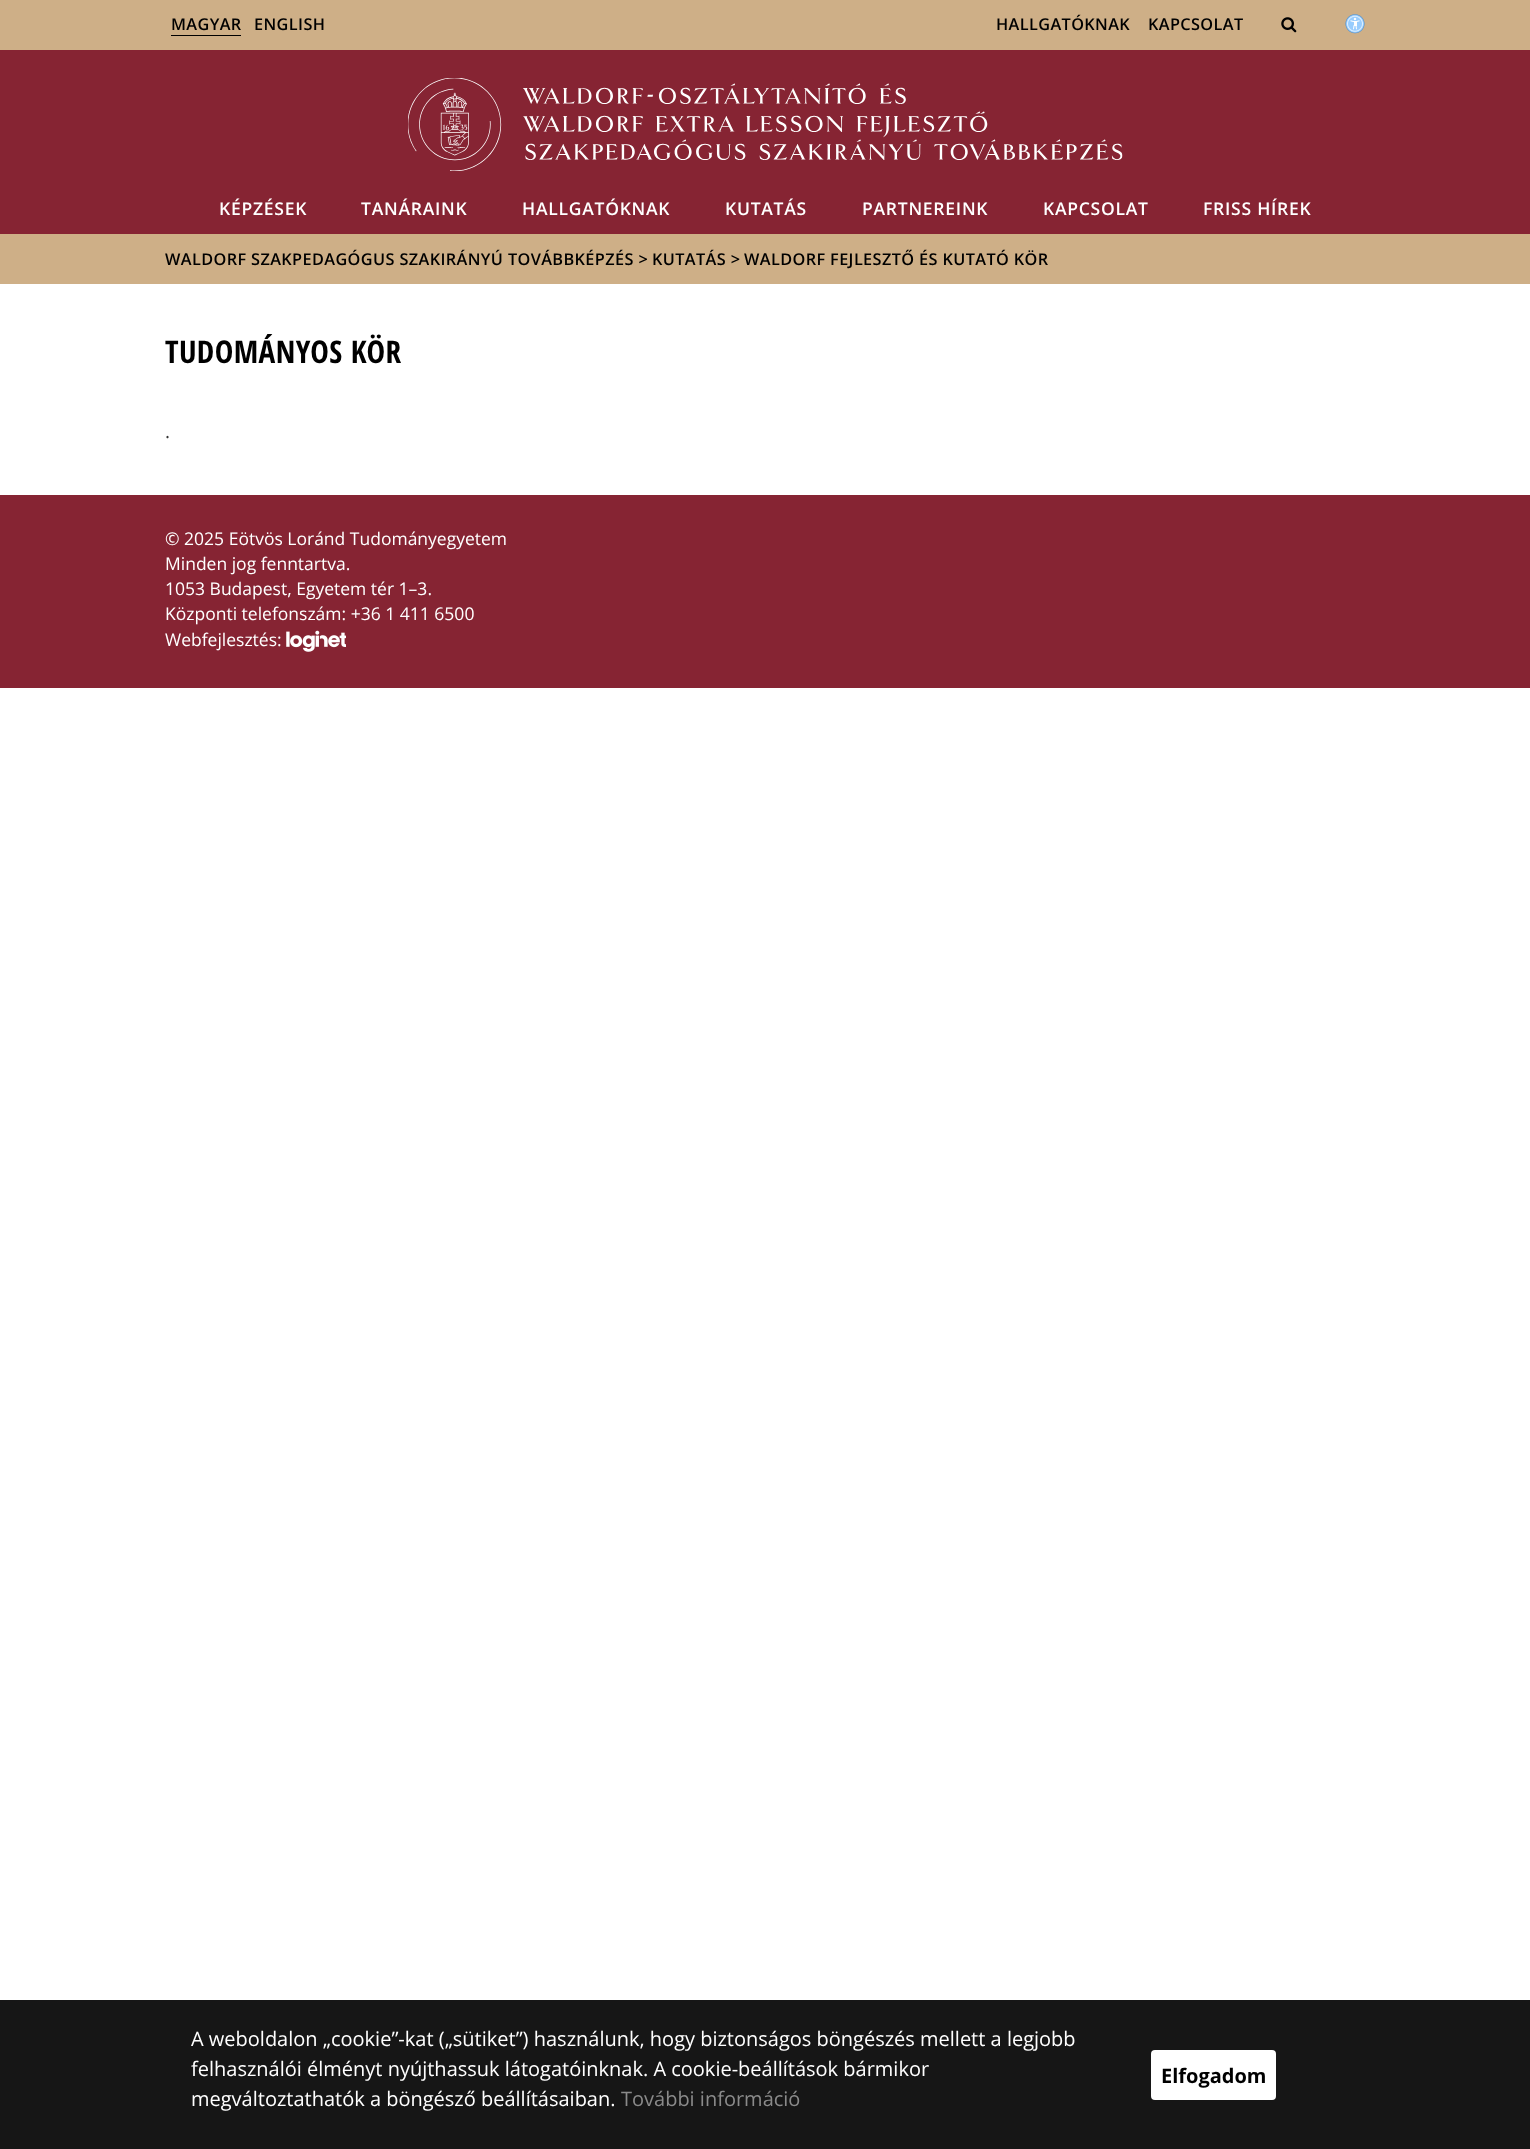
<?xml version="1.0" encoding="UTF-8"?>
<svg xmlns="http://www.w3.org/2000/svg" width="1530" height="2149">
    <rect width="100%" height="100%" fill="#FFFFFF"/>
    <rect x="0" y="0" width="1530" height="50" fill="#CEAF87"/>
    <text x="171" y="30" font-family="Open Sans" font-size="16.25" font-weight="600" letter-spacing="0.4" fill="#000000">MAGYAR</text>
    <rect x="171" y="35" width="70" height="1" fill="#000000"/>
    <text x="254" y="30" font-family="Open Sans" font-size="16.25" font-weight="600" letter-spacing="0.4" fill="#000000">ENGLISH</text>
    <text x="996" y="30" font-family="Open Sans" font-size="16.25" font-weight="600" letter-spacing="0.4" fill="#000000">HALLGATÓKNAK</text>
    <text x="1148" y="30" font-family="Open Sans" font-size="16.25" font-weight="600" letter-spacing="0.4" fill="#000000">KAPCSOLAT</text>
    <image x="1281" y="17" width="16" height="16" href="img_01.png"/>
    <image x="1345" y="14" width="20" height="20" href="img_02.png"/>
    <rect x="0" y="50" width="1530" height="184" fill="#862433"/>
    <image x="408" y="78" width="715" height="93" href="img_03.png"/>
    <text x="219" y="215" font-family="Open Sans" font-size="17.5" font-weight="600" letter-spacing="0.75" fill="#FFFFFF">KÉPZÉSEK</text>
    <text x="361" y="215" font-family="Open Sans" font-size="17.5" font-weight="600" letter-spacing="0.75" fill="#FFFFFF">TANÁRAINK</text>
    <text x="522" y="215" font-family="Open Sans" font-size="17.5" font-weight="600" letter-spacing="0.75" fill="#FFFFFF">HALLGATÓKNAK</text>
    <text x="725" y="215" font-family="Open Sans" font-size="17.5" font-weight="600" letter-spacing="0.75" fill="#FFFFFF">KUTATÁS</text>
    <text x="862" y="215" font-family="Open Sans" font-size="17.5" font-weight="600" letter-spacing="0.75" fill="#FFFFFF">PARTNEREINK</text>
    <text x="1043" y="215" font-family="Open Sans" font-size="17.5" font-weight="600" letter-spacing="0.75" fill="#FFFFFF">KAPCSOLAT</text>
    <text x="1203" y="215" font-family="Open Sans" font-size="17.5" font-weight="600" letter-spacing="0.75" fill="#FFFFFF">FRISS HÍREK</text>
    <rect x="0" y="234" width="1530" height="50" fill="#CEAF87"/>
    <text x="165" y="265" font-family="Open Sans" font-size="16.25" font-weight="600" letter-spacing="0.4" fill="#000000">WALDORF SZAKPEDAGÓGUS SZAKIRÁNYÚ TOVÁBBKÉPZÉS &gt;</text>
    <text x="652" y="265" font-family="Open Sans" font-size="16.25" font-weight="600" letter-spacing="0.4" fill="#000000">KUTATÁS &gt;</text>
    <text x="744" y="265" font-family="Open Sans" font-size="16.25" font-weight="600" letter-spacing="0.4" fill="#000000">WALDORF FEJLESZTŐ ÉS KUTATÓ KÖR</text>
    <text x="165" y="363" font-family="Open Sans Condensed" font-size="31.25" font-weight="700" letter-spacing="0.4" fill="#000000">TUDOMÁNYOS KÖR</text>
    <text x="165" y="438" font-family="Open Sans" font-size="19" fill="#333333">.</text>
    <rect x="0" y="495" width="1530" height="193" fill="#862433"/>
    <text font-family="Open Sans" font-size="17.5" fill="#FFFFFF">
        <tspan x="165" y="545">© 2025 Eötvös Loránd Tudományegyetem</tspan>
        <tspan x="165" y="570">Minden jog fenntartva.</tspan>
        <tspan x="165" y="595">1053 Budapest, Egyetem tér 1–3.</tspan>
        <tspan x="165" y="620">Központi telefonszám: +36 1 411 6500</tspan>
        <tspan x="165" y="646">Webfejlesztés:</tspan>
    </text>
    <image x="286" y="630" width="60" height="22" href="img_04.png"/>
    <rect x="0" y="2000" width="1530" height="149" fill="#161616"/>
    <text font-family="Open Sans" font-size="20" fill="#FFFFFF">
        <tspan x="191" y="2046">A weboldalon „cookie”-kat („sütiket”) használunk, hogy biztonságos böngészés mellett a legjobb</tspan>
        <tspan x="191" y="2076">felhasználói élményt nyújthassuk látogatóinknak. A cookie-beállítások bármikor</tspan>
        <tspan x="191" y="2106">megváltoztathatók a böngésző beállításaiban.</tspan>
    </text>
    <text x="621" y="2106" font-family="Open Sans" font-size="20" fill="#8A8A8A">További információ</text>
    <rect x="1151" y="2050" width="125" height="50" rx="4" fill="#FFFFFF"/>
    <text x="1161" y="2083" font-family="Open Sans" font-size="20" font-weight="700" fill="#000000">Elfogadom</text>
</svg>
